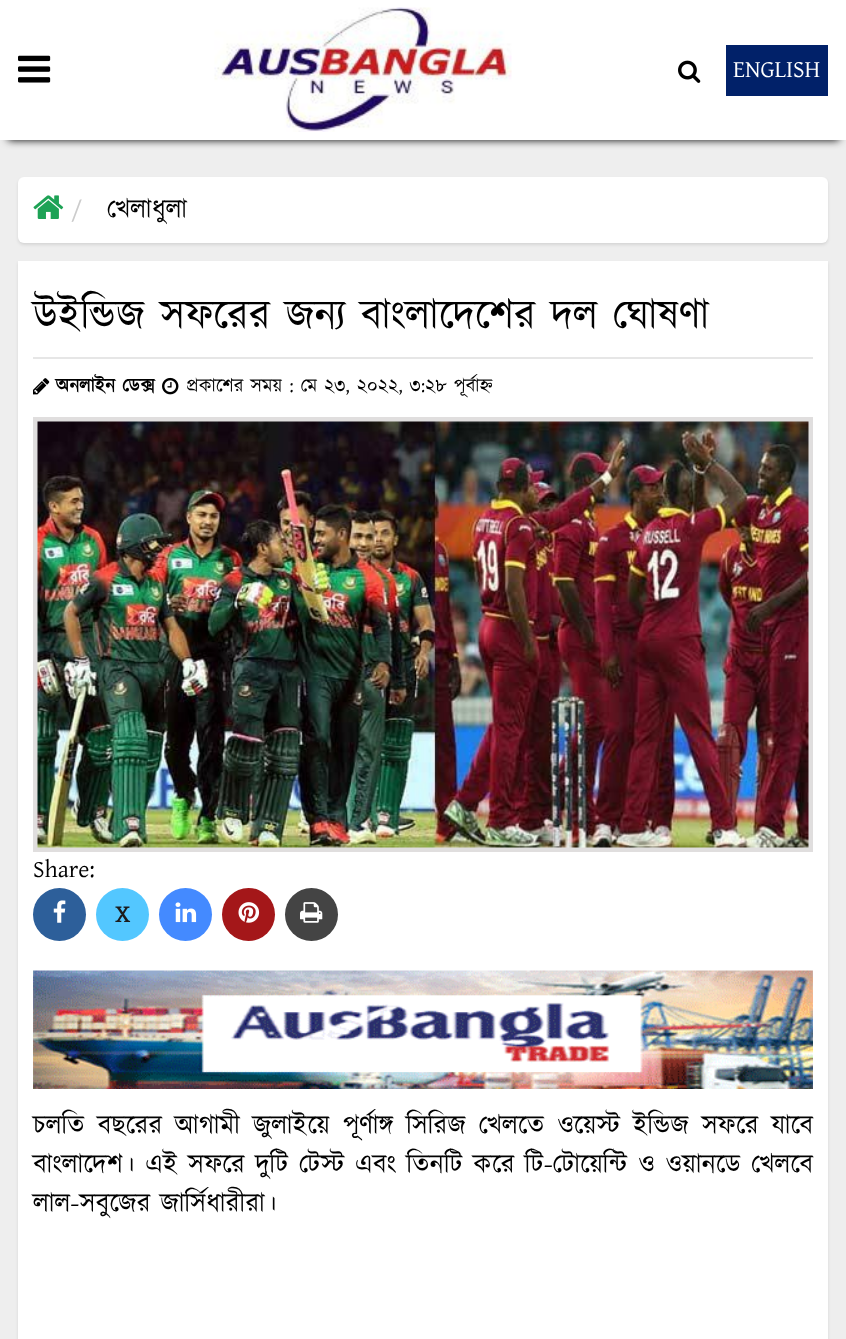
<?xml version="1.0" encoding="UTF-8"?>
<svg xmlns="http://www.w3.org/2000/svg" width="846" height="1339">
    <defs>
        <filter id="blur1" x="-50%" y="-200%" width="200%" height="500%"><feGaussianBlur stdDeviation="4"/></filter>
        <filter id="blur2" x="-50%" y="-200%" width="200%" height="500%"><feGaussianBlur stdDeviation="1.5"/></filter>
    </defs>
    <rect width="100%" height="100%" fill="#EEEEEE"/>
    <rect x="8" y="15" width="831" height="125" fill="#000000" filter="url(#blur1)"/>
    <rect x="0" y="0" width="846" height="140" fill="#FFFFFF"/>
    <image x="18" y="55" width="33" height="28" href="img_01.png"/>
    <image x="214" y="7" width="298" height="125" href="img_02.png"/>
    <image x="678" y="60" width="23" height="23" href="img_03.png"/>
    <rect x="726" y="45" width="102" height="51" fill="#012169"/>
    <text x="733" y="77" font-family="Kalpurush" font-size="24" fill="#FFFFFF">ENGLISH</text>
    <rect x="18" y="179" width="810" height="66" rx="6" fill="#000000" fill-opacity="0.1" filter="url(#blur2)"/>
    <rect x="18" y="177" width="810" height="66" rx="6" fill="#FFFFFF"/>
    <image x="33" y="195" width="31" height="24" href="img_04.png"/>
    <text x="71" y="218" font-family="Kalpurush" font-size="24" fill="#CCCCCC">/</text>
    <text x="107" y="218" font-family="Kalpurush" font-size="27" fill="#000000">খেলাধুলা</text>
    <rect x="18" y="263" width="810" height="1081" fill="#000000" fill-opacity="0.1" filter="url(#blur2)"/>
    <rect x="18" y="261" width="810" height="1078" fill="#FFFFFF"/>
    <text x="33" y="329" font-family="Kalpurush" font-size="42" fill="#000000">উইন্ডিজ সফরের জন্য বাংলাদেশের দল ঘোষণা</text>
    <rect x="33" y="357" width="780" height="2" fill="#E6E6E6"/>
    <image x="33" y="378" width="17" height="17" href="img_05.png"/>
    <text x="56" y="392" font-family="Kalpurush" font-size="19.25" font-weight="700" fill="#000000">অনলাইন ডেক্স</text>
    <image x="162" y="377" width="17" height="18" href="img_06.png"/>
    <text x="186" y="392" font-family="Kalpurush" font-size="19.25" fill="#000000">প্রকাশের সময় : মে ২৩, ২০২২, ৩:২৮ পূর্বাহ্ন</text>
    <rect x="35.5" y="419.5" width="775" height="430" fill="none" stroke="#E0DEDE" stroke-width="5"/>
    <image x="37" y="421" width="772" height="427" href="img_07.png"/>
    <text x="33" y="877" font-family="Kalpurush" font-size="24" fill="#000000">Share:</text>
    <circle cx="59.5" cy="914.5" r="26.5" fill="#2D5F9A"/>
    <image x="53" y="900" width="13" height="23" href="img_08.png"/>
    <circle cx="122.5" cy="914.5" r="26.5" fill="#53C7FF"/>
    <text x="115" y="922" font-family="Kalpurush" font-size="24" font-weight="700" fill="#1C1C1C">X</text>
    <circle cx="185.5" cy="914.5" r="26.5" fill="#448AFF"/>
    <image x="175" y="902" width="22" height="21" href="img_09.png"/>
    <circle cx="248.5" cy="914.5" r="26.5" fill="#A41719"/>
    <image x="238" y="902" width="22" height="21" href="img_10.png"/>
    <circle cx="311.5" cy="914.5" r="26.5" fill="#444444"/>
    <image x="300" y="902" width="23" height="21" href="img_11.png"/>
    <image x="33" y="970" width="780" height="119" href="img_12.png"/>
    <text font-family="Kalpurush" font-size="27" fill="#000000">
        <tspan x="33" y="1134" word-spacing="3">চলতি বছরের আগামী জুলাইয়ে পূর্ণাঙ্গ সিরিজ খেলতে ওয়েস্ট ইন্ডিজ সফরে যাবে</tspan>
        <tspan x="33" y="1173" word-spacing="0.6">বাংলাদেশ। এই সফরে দুটি টেস্ট এবং তিনটি করে টি-টোয়েন্টি ও ওয়ানডে খেলবে</tspan>
        <tspan x="33" y="1212">লাল-সবুজের জার্সিধারীরা।</tspan>
    </text>
</svg>
